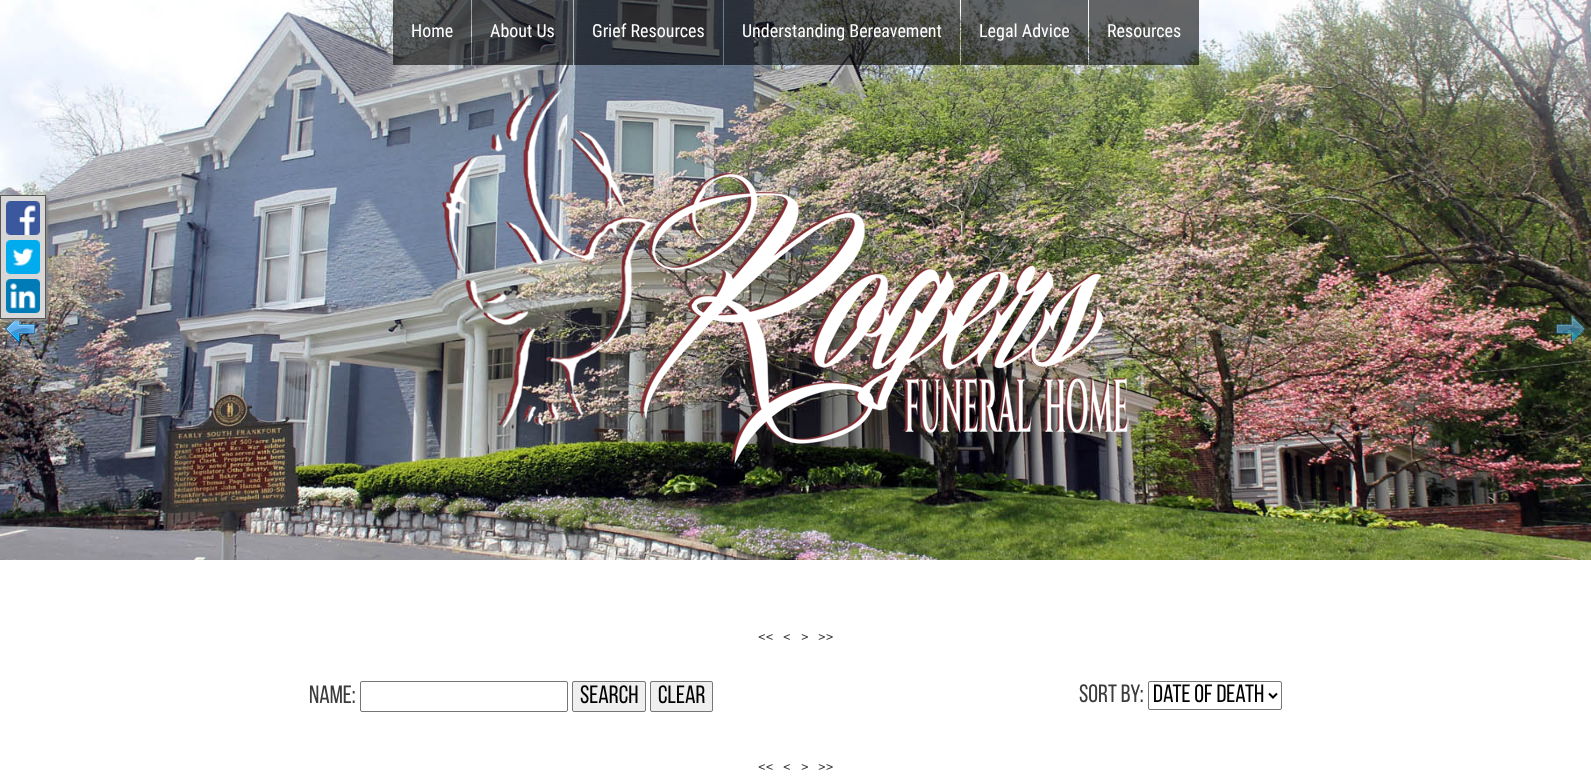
<?xml version="1.0" encoding="UTF-8"?>
<svg xmlns="http://www.w3.org/2000/svg" width="1591" height="781">
    <defs>
        <filter id="blur1" x="-50%" y="-200%" width="200%" height="500%"><feGaussianBlur stdDeviation="1"/></filter>
    </defs>
    <rect width="100%" height="100%" fill="#FFFFFF"/>
    <image x="0" y="0" width="1591" height="560" href="img_04.png"/>
    <image x="5" y="319" width="30" height="25" href="img_05.png"/>
    <rect x="2" y="197" width="46" height="124" fill="#888888" filter="url(#blur1)"/>
    <rect x="0.5" y="195.5" width="45" height="123" fill="#D7D7D7" stroke="#585858"/>
    <image x="6" y="201" width="34" height="34" href="img_01.png"/>
    <image x="6" y="240" width="34" height="34" href="img_02.png"/>
    <image x="6" y="279" width="34" height="34" href="img_03.png"/>
    <image x="1556" y="315" width="30" height="29" href="img_06.png"/>
    <image x="442" y="87" width="687" height="378" href="img_07.png"/>
    <rect x="393" y="0" width="78" height="65" fill="#000000" fill-opacity="0.6"/>
    <text x="411" y="37" font-family="Roboto Condensed" font-size="18" fill="#FFFFFF">Home</text>
    <rect x="472" y="0" width="101" height="65" fill="#000000" fill-opacity="0.6"/>
    <text x="490" y="37" font-family="Roboto Condensed" font-size="18" fill="#FFFFFF">About Us</text>
    <rect x="574" y="0" width="149" height="65" fill="#000000" fill-opacity="0.6"/>
    <text x="592" y="37" font-family="Roboto Condensed" font-size="18" fill="#FFFFFF">Grief Resources</text>
    <rect x="724" y="0" width="236" height="65" fill="#000000" fill-opacity="0.6"/>
    <text x="742" y="37" font-family="Roboto Condensed" font-size="18" fill="#FFFFFF">Understanding Bereavement</text>
    <rect x="961" y="0" width="127" height="65" fill="#000000" fill-opacity="0.6"/>
    <text x="979" y="37" font-family="Roboto Condensed" font-size="18" fill="#FFFFFF">Legal Advice</text>
    <rect x="1089" y="0" width="110" height="65" fill="#000000" fill-opacity="0.6"/>
    <text x="1107" y="37" font-family="Roboto Condensed" font-size="18" fill="#FFFFFF">Resources</text>
    <text x="758" y="644" font-family="Bebas Neue" font-size="20" fill="#3C3C3C">&lt;&lt;</text>
    <text x="783" y="644" font-family="Bebas Neue" font-size="20" fill="#3C3C3C">&lt;</text>
    <text x="801" y="644" font-family="Bebas Neue" font-size="20" fill="#3C3C3C">&gt;</text>
    <text x="818" y="644" font-family="Bebas Neue" font-size="20" fill="#3C3C3C">&gt;&gt;</text>
    <text x="309" y="703" font-family="Bebas Neue" font-size="25" fill="#3C3C3C">Name:</text>
    <rect x="360.5" y="681.5" width="207" height="30" rx="1.5" fill="none" stroke="#767676"/>
    <rect x="572.5" y="681.5" width="73" height="30" rx="1.5" fill="#EFEFEF" stroke="#767676"/>
    <text x="580" y="703" font-family="Bebas Neue" font-size="25" fill="#000000">Search</text>
    <rect x="650.5" y="681.5" width="62" height="30" rx="1.5" fill="#EFEFEF" stroke="#767676"/>
    <text x="658" y="703" font-family="Bebas Neue" font-size="25" fill="#000000">Clear</text>
    <text x="1079" y="702" font-family="Bebas Neue" font-size="25" fill="#3C3C3C">Sort by:</text>
    <rect x="1148.5" y="681.5" width="133" height="28" rx="1.5" fill="none" stroke="#767676"/>
    <path d="M 1269 693.5 L 1273 697.5 L 1277 693.5" fill="none" stroke="#000000" stroke-width="2"/>
    <text x="1153" y="702" font-family="Bebas Neue" font-size="25" fill="#000000">Date of Death</text>
    <text x="758" y="774" font-family="Bebas Neue" font-size="20" fill="#3C3C3C">&lt;&lt;</text>
    <text x="783" y="774" font-family="Bebas Neue" font-size="20" fill="#3C3C3C">&lt;</text>
    <text x="801" y="774" font-family="Bebas Neue" font-size="20" fill="#3C3C3C">&gt;</text>
    <text x="818" y="774" font-family="Bebas Neue" font-size="20" fill="#3C3C3C">&gt;&gt;</text>
</svg>
